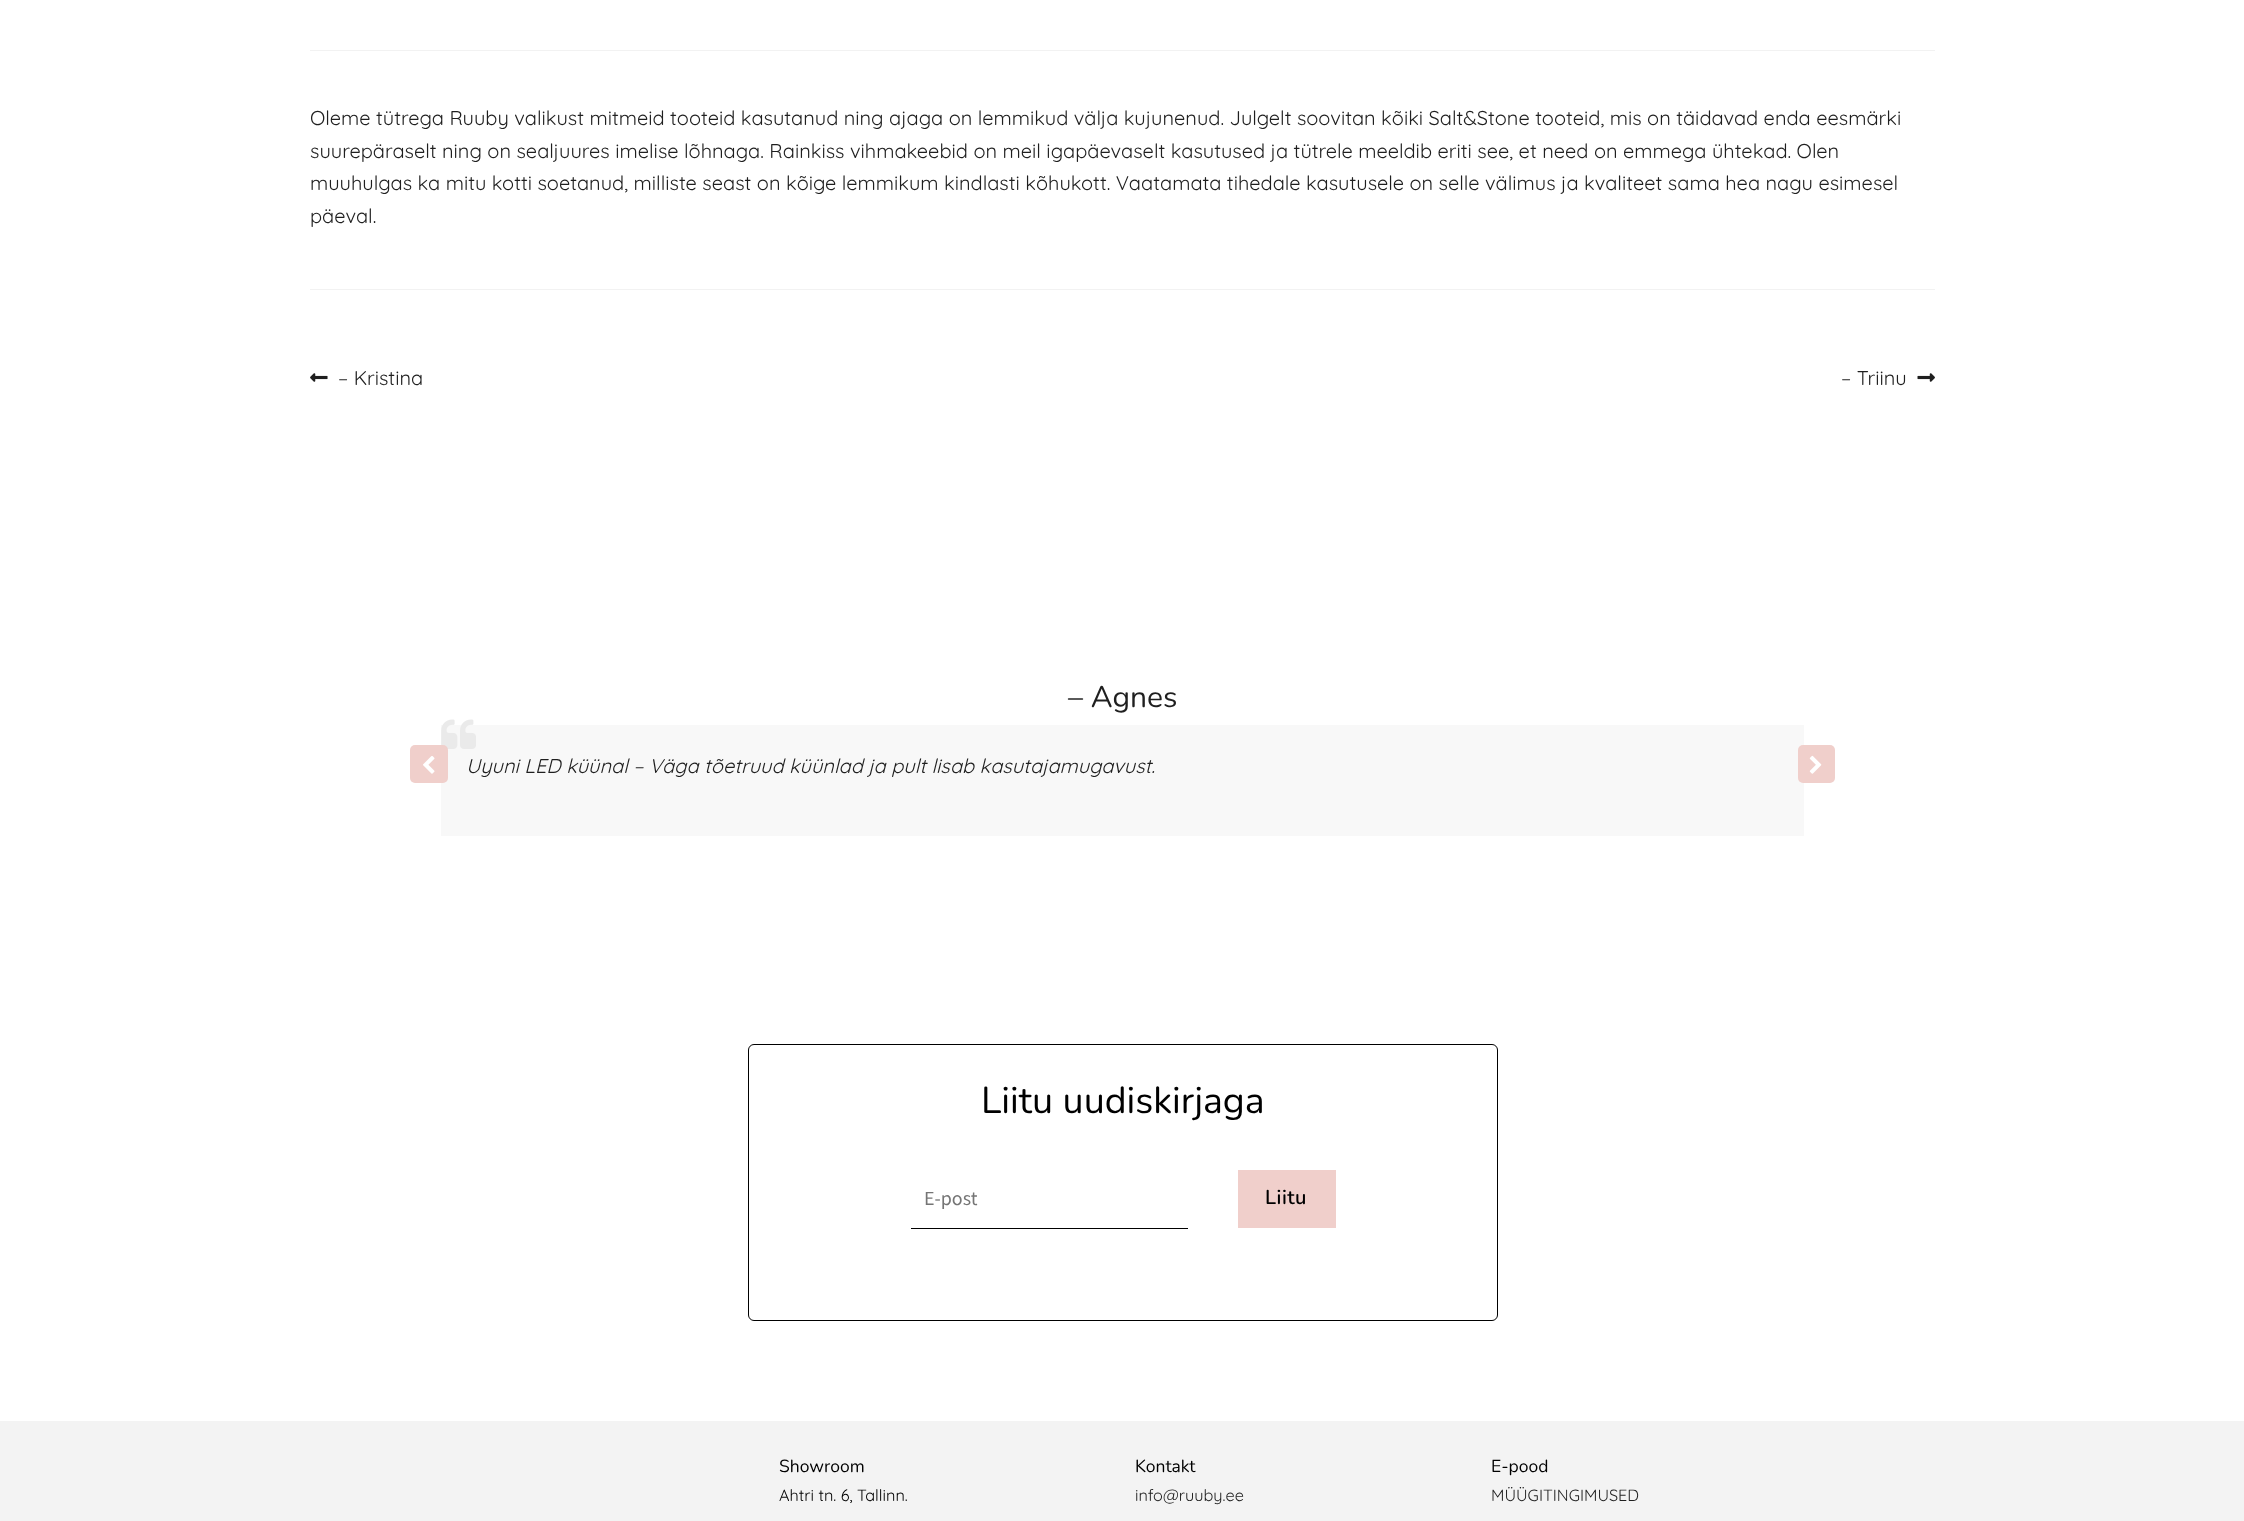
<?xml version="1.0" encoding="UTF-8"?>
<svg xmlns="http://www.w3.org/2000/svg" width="2244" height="1521">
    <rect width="100%" height="100%" fill="#FFFFFF"/>
    <rect x="310" y="50" width="1625" height="1" fill="#F2F2F2"/>
    <text font-family="Quicksand" font-size="20" fill="#1F1F1F">
        <tspan x="310" y="125">Oleme tütrega Ruuby valikust mitmeid tooteid kasutanud ning ajaga on lemmikud välja kujunenud. Julgelt soovitan kõiki Salt&amp;Stone tooteid, mis on täidavad enda eesmärki</tspan>
        <tspan x="310" y="158">suurepäraselt ning on sealjuures imelise lõhnaga. Rainkiss vihmakeebid on meil igapäevaselt kasutused ja tütrele meeldib eriti see, et need on emmega ühtekad. Olen</tspan>
        <tspan x="310" y="190">muuhulgas ka mitu kotti soetanud, milliste seast on kõige lemmikum kindlasti kõhukott. Vaatamata tihedale kasutusele on selle välimus ja kvaliteet sama hea nagu esimesel</tspan>
        <tspan x="310" y="223">päeval.</tspan>
    </text>
    <rect x="310" y="289" width="1625" height="1" fill="#F2F2F2"/>
    <image x="310" y="373" width="18" height="9" href="img_01.png"/>
    <text x="338" y="385" font-family="Quicksand" font-size="20" fill="#1F1F1F">– Kristina</text>
    <text x="1841" y="385" font-family="Quicksand" font-size="20" fill="#1F1F1F">– Triinu</text>
    <image x="1917" y="373" width="18" height="9" href="img_02.png"/>
    <rect x="441" y="725" width="1363" height="111" fill="#F8F8F8"/>
    <image x="441" y="719" width="35" height="30" href="img_04.png"/>
    <rect x="410" y="745" width="38" height="38" rx="5" fill="#F0CFCB"/>
    <image x="423" y="756" width="12" height="18" href="img_03.png"/>
    <text x="1068" y="707" font-family="Nunito" font-size="30" fill="#1F1F1F">– Agnes</text>
    <text x="466" y="773" font-family="Quicksand" font-size="20" font-style="italic" fill="#1F1F1F">Uyuni LED küünal – Väga tõetruud küünlad ja pult lisab kasutajamugavust.</text>
    <rect x="1798" y="745" width="37" height="38" rx="5" fill="#F0CFCB"/>
    <image x="1809" y="755" width="13" height="19" href="img_05.png"/>
    <rect x="748.5" y="1044.5" width="749" height="276" rx="5.5" fill="none" stroke="#000000"/>
    <text x="981" y="1113" font-family="Nunito" font-size="37.5" fill="#000000">Liitu uudiskirjaga</text>
    <rect x="911" y="1228" width="277" height="1" fill="#000000"/>
    <text x="924" y="1205" font-family="Source Sans Pro" font-size="20" fill="#757575">E-post</text>
    <rect x="1238" y="1170" width="98" height="58" fill="#F0CFCB"/>
    <text x="1265" y="1204" font-family="Nunito" font-size="20" font-weight="600" letter-spacing="0.5" fill="#000000">Liitu</text>
    <rect x="0" y="1421" width="2244" height="100" fill="#F3F3F3"/>
    <text x="779" y="1472" font-family="Nunito" font-size="17.5" fill="#000000">Showroom</text>
    <text x="779" y="1501" font-family="Quicksand" font-size="16.25" fill="#000000">Ahtri tn. 6, Tallinn.</text>
    <text x="1135" y="1472" font-family="Nunito" font-size="17.5" fill="#000000">Kontakt</text>
    <text x="1135" y="1501" font-family="Quicksand" font-size="16.25" fill="#1F1F1F">info@ruuby.ee</text>
    <text x="1491" y="1472" font-family="Nunito" font-size="17.5" fill="#000000">E-pood</text>
    <text x="1491" y="1501" font-family="Quicksand" font-size="16.25" fill="#1F1F1F">MÜÜGITINGIMUSED</text>
</svg>
